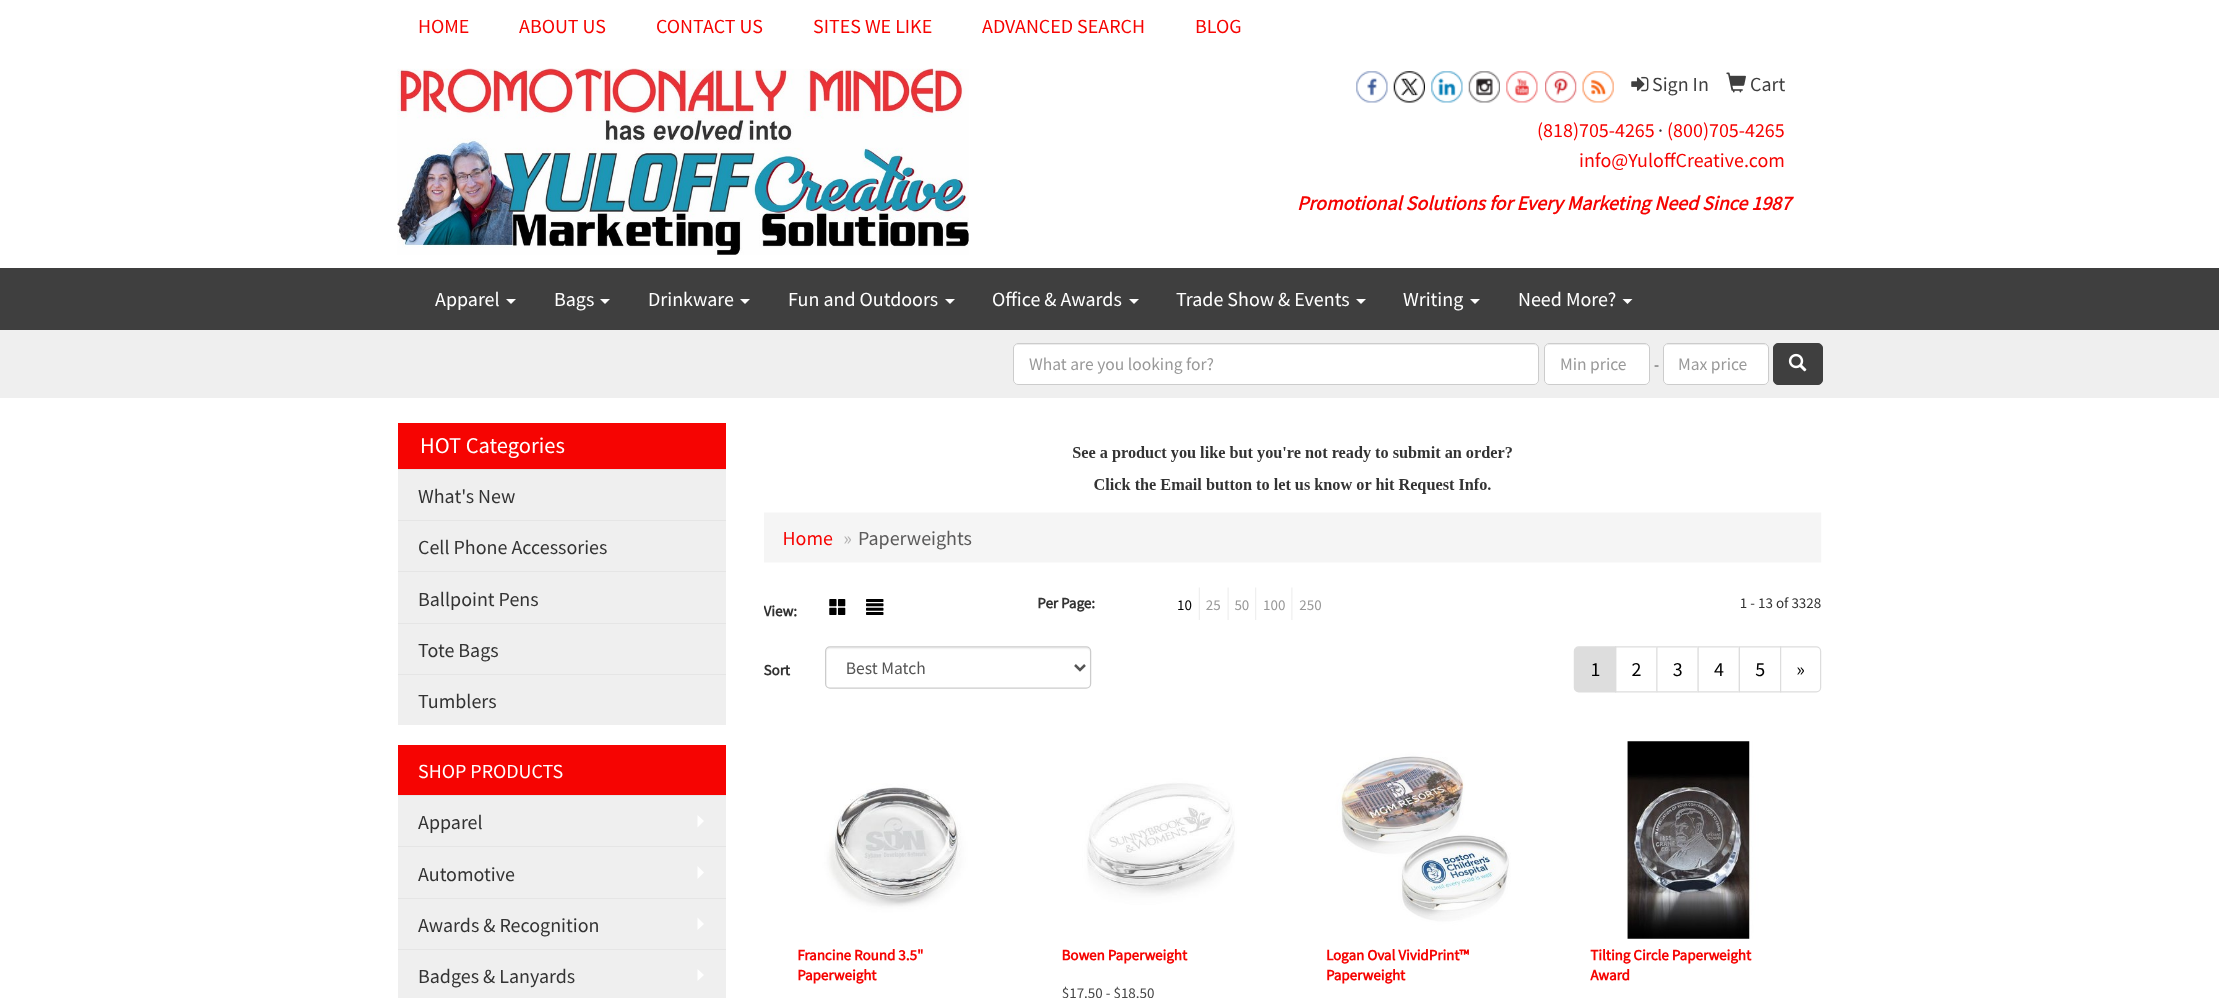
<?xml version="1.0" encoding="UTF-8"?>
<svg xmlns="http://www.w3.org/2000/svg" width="2219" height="998">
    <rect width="100%" height="100%" fill="#FFFFFF"/>
    <text x="418" y="33" font-family="Source Sans Pro" font-size="20" fill="#F60402">HOME</text>
    <text x="519" y="33" font-family="Source Sans Pro" font-size="20" fill="#F60402">ABOUT US</text>
    <text x="656" y="33" font-family="Source Sans Pro" font-size="20" fill="#F60402">CONTACT US</text>
    <text x="813" y="33" font-family="Source Sans Pro" font-size="20" fill="#F60402">SITES WE LIKE</text>
    <text x="982" y="33" font-family="Source Sans Pro" font-size="20" fill="#F60402">ADVANCED SEARCH</text>
    <text x="1195" y="33" font-family="Source Sans Pro" font-size="20" fill="#F60402">BLOG</text>
    <image x="397" y="68" width="572" height="187" href="img_01.png"/>
    <image x="1356" y="71" width="32" height="32" href="img_02.png"/>
    <image x="1393" y="71" width="32" height="32" href="img_03.png"/>
    <image x="1431" y="71" width="32" height="32" href="img_04.png"/>
    <image x="1468" y="71" width="32" height="32" href="img_05.png"/>
    <image x="1506" y="71" width="32" height="32" href="img_06.png"/>
    <image x="1545" y="71" width="32" height="32" href="img_07.png"/>
    <image x="1582" y="71" width="32" height="32" href="img_08.png"/>
    <image x="1631" y="76" width="18" height="16" href="img_09.png"/>
    <text x="1652" y="91" font-family="Source Sans Pro" font-size="20" fill="#3F3F3F">Sign In</text>
    <image x="1726" y="72" width="20" height="21" href="img_10.png"/>
    <text x="1750" y="91" font-family="Source Sans Pro" font-size="20" fill="#3F3F3F">Cart</text>
    <text x="1537" y="137" font-family="Source Sans Pro" font-size="20" fill="#F60402">(818)705-4265</text>
    <text x="1658" y="137" font-family="Source Sans Pro" font-size="20" fill="#333333">·</text>
    <text x="1667" y="137" font-family="Source Sans Pro" font-size="20" fill="#F60402">(800)705-4265</text>
    <text x="1579" y="167" font-family="Source Sans Pro" font-size="20" fill="#F60402">info@YuloffCreative.com</text>
    <text x="1297" y="210" font-family="Source Sans Pro" font-size="20" font-weight="700" font-style="italic" fill="#F60402">Promotional Solutions for Every Marketing Need Since 1987</text>
    <rect x="0" y="268" width="2219" height="62" fill="#3F3F3F"/>
    <text x="435" y="306" font-family="Source Sans Pro" font-size="20" fill="#FFFFFF">Apparel</text>
    <path d="M 506 299 H 516 L 511 304 Z" fill="#FFFFFF"/>
    <text x="554" y="306" font-family="Source Sans Pro" font-size="20" fill="#FFFFFF">Bags</text>
    <path d="M 600 299 H 610 L 605 304 Z" fill="#FFFFFF"/>
    <text x="648" y="306" font-family="Source Sans Pro" font-size="20" fill="#FFFFFF">Drinkware</text>
    <path d="M 740 299 H 750 L 745 304 Z" fill="#FFFFFF"/>
    <text x="788" y="306" font-family="Source Sans Pro" font-size="20" fill="#FFFFFF">Fun and Outdoors</text>
    <path d="M 945 299 H 955 L 950 304 Z" fill="#FFFFFF"/>
    <text x="992" y="306" font-family="Source Sans Pro" font-size="20" fill="#FFFFFF">Office &amp; Awards</text>
    <path d="M 1129 299 H 1139 L 1134 304 Z" fill="#FFFFFF"/>
    <text x="1176" y="306" font-family="Source Sans Pro" font-size="20" fill="#FFFFFF">Trade Show &amp; Events</text>
    <path d="M 1356 299 H 1366 L 1361 304 Z" fill="#FFFFFF"/>
    <text x="1403" y="306" font-family="Source Sans Pro" font-size="20" fill="#FFFFFF">Writing</text>
    <path d="M 1470 299 H 1480 L 1475 304 Z" fill="#FFFFFF"/>
    <text x="1518" y="306" font-family="Source Sans Pro" font-size="20" fill="#FFFFFF">Need More?</text>
    <path d="M 1622.5 299 H 1632.5 L 1627.5 304 Z" fill="#FFFFFF"/>
    <rect x="0" y="330" width="2219" height="68" fill="#EFEFEF"/>
    <rect x="1013" y="343" width="526" height="42" rx="5" fill="#FFFFFF"/>
    <path d="M 1018 345 H 1534 C 1536 345 1538 347 1538 349 V 348 C 1538 346 1536 344 1534 344 H 1018 C 1016 344 1014 346 1014 348 V 349 C 1014 347 1015 345 1018 345 Z" fill="#ECECEC"/>
    <rect x="1013.5" y="343.5" width="525" height="41" rx="4.5" fill="none" stroke="#CCCCCC"/>
    <text x="1029" y="370" font-family="Source Sans Pro" font-size="17.5" fill="#999999">What are you looking for?</text>
    <rect x="1544" y="343" width="106" height="42" rx="5" fill="#FFFFFF"/>
    <path d="M 1549 345 H 1645 C 1647 345 1649 347 1649 349 C 1649 340 1633 344 1629 344 H 1565 C 1561 344 1545 340 1545 349 C 1545 347 1547 345 1549 345 Z" fill="#ECECEC"/>
    <rect x="1544.5" y="343.5" width="105" height="41" rx="4.5" fill="none" stroke="#CCCCCC"/>
    <text x="1560" y="370" font-family="Source Sans Pro" font-size="17.5" fill="#999999">Min price</text>
    <text x="1654" y="370" font-family="Source Sans Pro" font-size="15" font-weight="700" fill="#7B7B7B">-</text>
    <rect x="1663" y="343" width="106" height="42" rx="5" fill="#FFFFFF"/>
    <path d="M 1668 345 H 1764 C 1766 345 1768 347 1768 349 C 1768 340 1752 344 1748 344 H 1684 C 1680 344 1664 340 1664 349 C 1664 347 1665 345 1668 345 Z" fill="#ECECEC"/>
    <rect x="1663.5" y="343.5" width="105" height="41" rx="4.5" fill="none" stroke="#CCCCCC"/>
    <text x="1678" y="370" font-family="Source Sans Pro" font-size="17.5" fill="#999999">Max price</text>
    <rect x="1773.5" y="343.5" width="49" height="41" rx="4.5" fill="#3F3F3F" stroke="#3F3F3F"/>
    <image x="1788" y="353" width="19" height="19" href="img_11.png"/>
    <rect x="398" y="423" width="328" height="46" fill="#F60402"/>
    <text x="420" y="453" font-family="Source Sans Pro" font-size="22.5" fill="#FFFFFF">HOT Categories</text>
    <rect x="398" y="470" width="328" height="50" fill="#EFEFEF"/>
    <rect x="398" y="469" width="328" height="1" fill="#E5E5E5"/>
    <text x="418" y="503" font-family="Source Sans Pro" font-size="20" fill="#333333">What's New</text>
    <rect x="398" y="521" width="328" height="50" fill="#EFEFEF"/>
    <rect x="398" y="520" width="328" height="1" fill="#E5E5E5"/>
    <text x="418" y="554" font-family="Source Sans Pro" font-size="20" fill="#333333">Cell Phone Accessories</text>
    <rect x="398" y="572" width="328" height="51" fill="#EFEFEF"/>
    <rect x="398" y="571" width="328" height="1" fill="#E5E5E5"/>
    <text x="418" y="606" font-family="Source Sans Pro" font-size="20" fill="#333333">Ballpoint Pens</text>
    <rect x="398" y="624" width="328" height="50" fill="#EFEFEF"/>
    <rect x="398" y="623" width="328" height="1" fill="#E5E5E5"/>
    <text x="418" y="657" font-family="Source Sans Pro" font-size="20" fill="#333333">Tote Bags</text>
    <rect x="398" y="675" width="328" height="50" fill="#EFEFEF"/>
    <rect x="398" y="674" width="328" height="1" fill="#E5E5E5"/>
    <text x="418" y="708" font-family="Source Sans Pro" font-size="20" fill="#333333">Tumblers</text>
    <rect x="398" y="745" width="328" height="50" fill="#F60402"/>
    <text x="418" y="778" font-family="Source Sans Pro" font-size="20" fill="#FFFFFF">SHOP PRODUCTS</text>
    <rect x="398" y="796" width="328" height="50" fill="#EFEFEF"/>
    <rect x="398" y="795" width="328" height="1" fill="#E5E5E5"/>
    <text x="418" y="829" font-family="Source Sans Pro" font-size="20" fill="#333333">Apparel</text>
    <path d="M 697.5 827.5 V 815 L 704 821 Z" fill="#FFFFFF"/>
    <rect x="398" y="847" width="328" height="51" fill="#EFEFEF"/>
    <rect x="398" y="846" width="328" height="1" fill="#E5E5E5"/>
    <text x="418" y="881" font-family="Source Sans Pro" font-size="20" fill="#333333">Automotive</text>
    <path d="M 697.5 879 V 866 L 704 872.5 Z" fill="#FFFFFF"/>
    <rect x="398" y="899" width="328" height="50" fill="#EFEFEF"/>
    <rect x="398" y="898" width="328" height="1" fill="#E5E5E5"/>
    <text x="418" y="932" font-family="Source Sans Pro" font-size="20" fill="#333333">Awards &amp; Recognition</text>
    <path d="M 697.5 930 V 917.5 L 704 924 Z" fill="#FFFFFF"/>
    <rect x="398" y="950" width="328" height="48" fill="#EFEFEF"/>
    <rect x="398" y="949" width="328" height="1" fill="#E5E5E5"/>
    <text x="418" y="983" font-family="Source Sans Pro" font-size="20" fill="#333333">Badges &amp; Lanyards</text>
    <path d="M 697.5 981 V 969 L 704 975 Z" fill="#FFFFFF"/>
    <image x="763" y="446" width="1059" height="552" href="img_12.png"/>
</svg>
